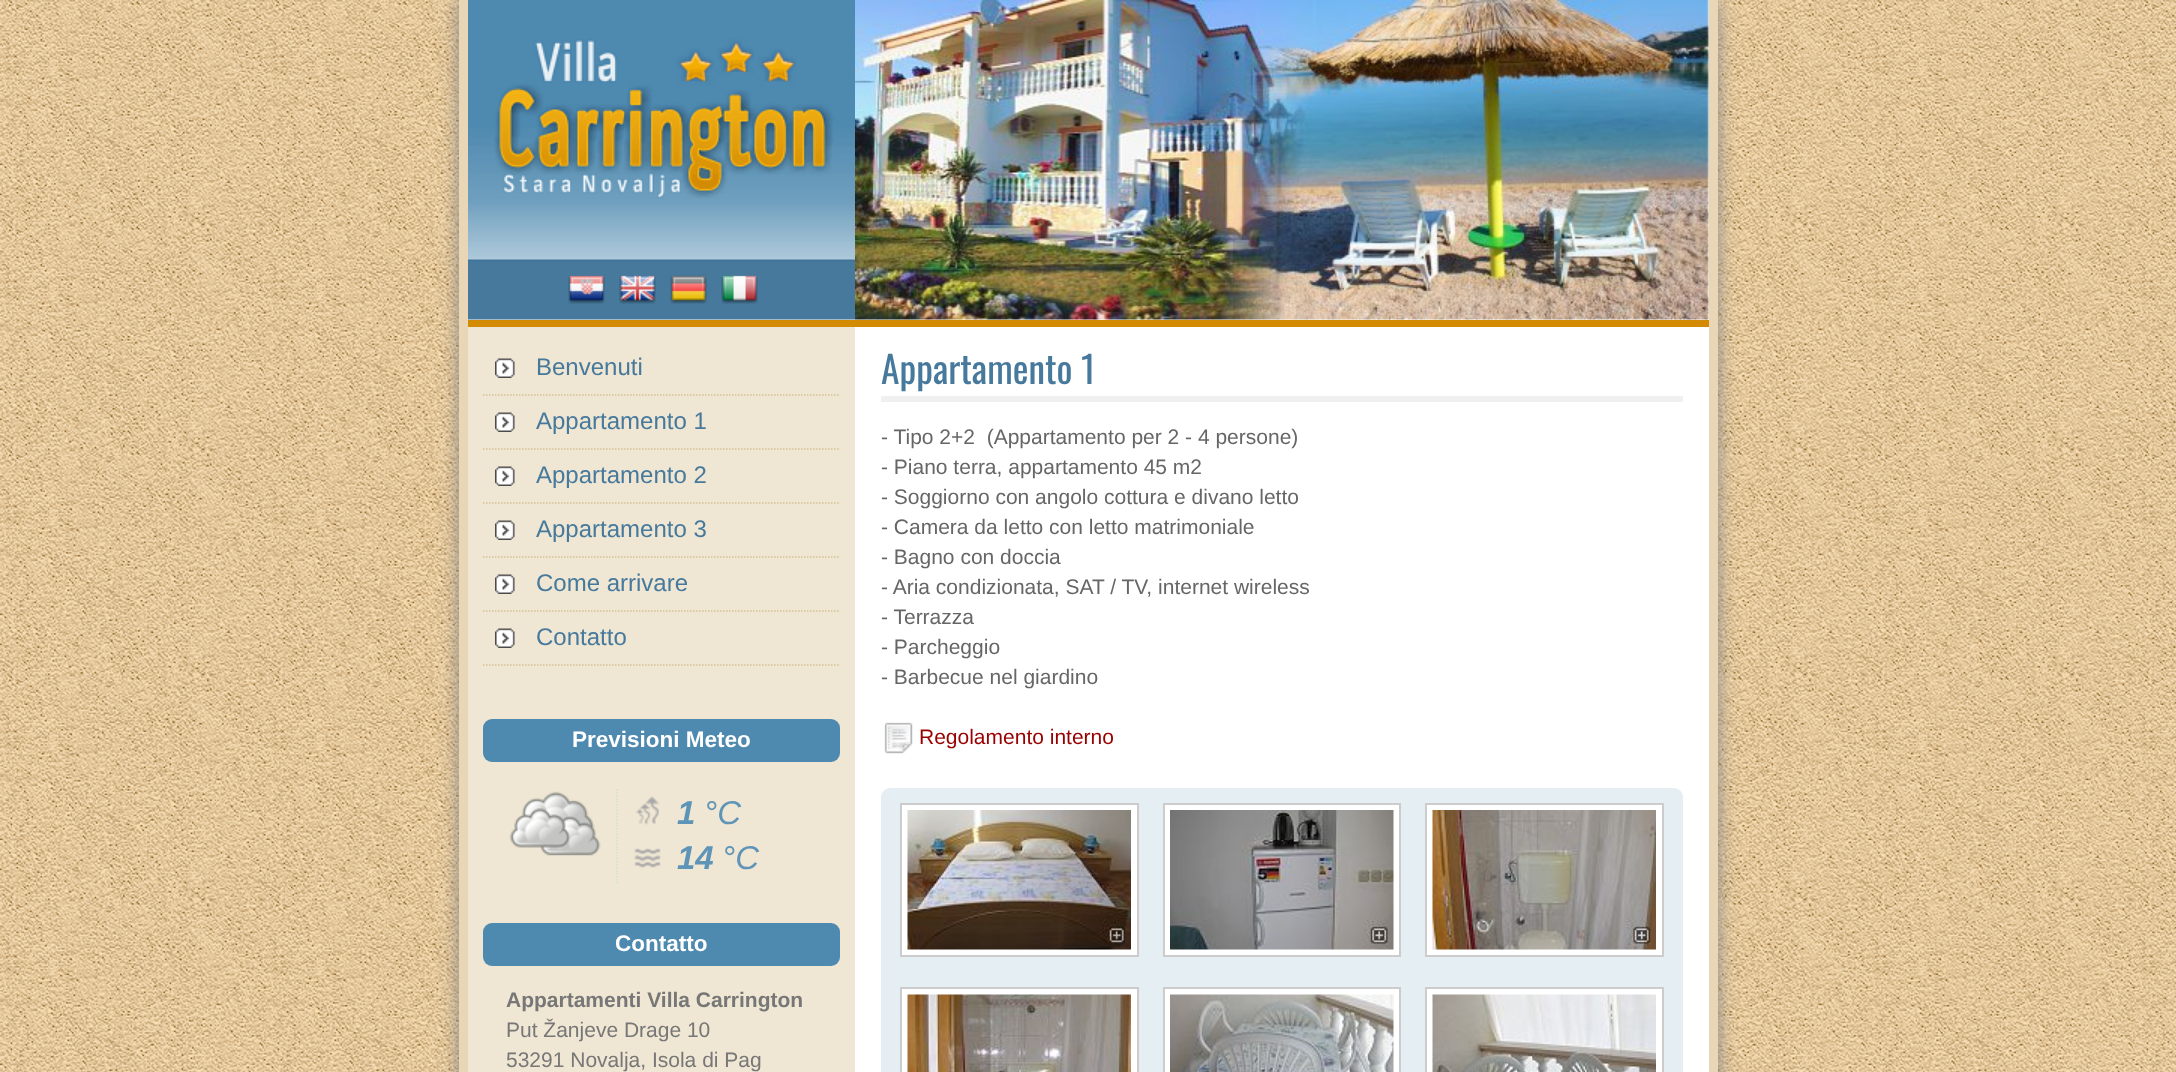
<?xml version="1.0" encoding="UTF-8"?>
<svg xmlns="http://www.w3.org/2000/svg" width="2176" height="1072">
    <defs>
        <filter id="blur1" x="-50%" y="-200%" width="200%" height="500%"><feGaussianBlur stdDeviation="9"/></filter>
    </defs>
    <rect width="100%" height="100%" fill="#FFFFFF"/>
    <image x="0" y="0" width="2176" height="1072" href="img_01.png"/>
    <rect x="459" y="0" width="1259" height="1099" fill="#888888" filter="url(#blur1)"/>
    <rect x="468" y="0" width="1241" height="1072" fill="#FFFFFF"/>
    <rect x="1709" y="0" width="9" height="1072" fill="#E8D6B7"/>
    <rect x="459" y="0" width="9" height="1072" fill="#E8D6B7"/>
    <rect x="468" y="320" width="1241" height="7" fill="#D38B03"/>
    <image x="468" y="0" width="387" height="320" href="img_02.png"/>
    <image x="568" y="275" width="37" height="29" href="img_03.png"/>
    <image x="619" y="275" width="37" height="29" href="img_04.png"/>
    <image x="670" y="275" width="37" height="29" href="img_05.png"/>
    <image x="721" y="275" width="37" height="29" href="img_06.png"/>
    <image x="855" y="0" width="854" height="320" href="img_07.png"/>
    <rect x="468" y="327" width="387" height="745" fill="#EFE6D3"/>
    <image x="495" y="358" width="20" height="20" href="img_08.png"/>
    <path d="M 483 395 H 840" fill="none" stroke="#D8C194" stroke-width="1.5" stroke-dasharray="1.5 1.5"/>
    <text x="536" y="375" font-family="Liberation Sans" font-size="24" fill="#46799C">Benvenuti</text>
    <image x="495" y="412" width="20" height="20" href="img_08.png"/>
    <path d="M 483 449 H 840" fill="none" stroke="#D8C194" stroke-width="1.5" stroke-dasharray="1.5 1.5"/>
    <text x="536" y="429" font-family="Liberation Sans" font-size="24" fill="#46799C">Appartamento 1</text>
    <image x="495" y="466" width="20" height="20" href="img_08.png"/>
    <path d="M 483 503 H 840" fill="none" stroke="#D8C194" stroke-width="1.5" stroke-dasharray="1.5 1.5"/>
    <text x="536" y="483" font-family="Liberation Sans" font-size="24" fill="#46799C">Appartamento 2</text>
    <image x="495" y="520" width="20" height="20" href="img_08.png"/>
    <path d="M 483 557 H 840" fill="none" stroke="#D8C194" stroke-width="1.5" stroke-dasharray="1.5 1.5"/>
    <text x="536" y="537" font-family="Liberation Sans" font-size="24" fill="#46799C">Appartamento 3</text>
    <image x="495" y="574" width="20" height="20" href="img_08.png"/>
    <path d="M 483 611 H 840" fill="none" stroke="#D8C194" stroke-width="1.5" stroke-dasharray="1.5 1.5"/>
    <text x="536" y="591" font-family="Liberation Sans" font-size="24" fill="#46799C">Come arrivare</text>
    <image x="495" y="628" width="20" height="20" href="img_08.png"/>
    <path d="M 483 665 H 840" fill="none" stroke="#D8C194" stroke-width="1.5" stroke-dasharray="1.5 1.5"/>
    <text x="536" y="645" font-family="Liberation Sans" font-size="24" fill="#46799C">Contatto</text>
    <rect x="483" y="719" width="357" height="43" rx="9" fill="#4E89AF"/>
    <text x="572" y="747" font-family="Liberation Sans" font-size="22.5" font-weight="700" fill="#FFFFFF">Previsioni Meteo</text>
    <path d="M 617 789 V 885" fill="none" stroke="#C8E6C9" stroke-width="1.5" stroke-dasharray="1.5 1.5"/>
    <image x="509" y="791" width="92" height="65" href="img_09.png"/>
    <image x="634" y="796" width="27" height="72" href="img_10.png"/>
    <text x="677" y="824" font-family="Liberation Sans" font-size="33" font-weight="700" font-style="italic" fill="#5E94B7">1</text>
    <text x="704" y="824" font-family="Liberation Sans" font-size="33" font-style="italic" fill="#5E94B7">°C</text>
    <text x="677" y="869" font-family="Liberation Sans" font-size="33" font-weight="700" font-style="italic" fill="#5E94B7">14</text>
    <text x="722" y="869" font-family="Liberation Sans" font-size="33" font-style="italic" fill="#5E94B7">°C</text>
    <rect x="483" y="923" width="357" height="43" rx="9" fill="#4E89AF"/>
    <text x="615" y="951" font-family="Liberation Sans" font-size="22.5" font-weight="700" fill="#FFFFFF">Contatto</text>
    <text x="506" y="1007" font-family="Liberation Sans" font-size="21" font-weight="700" fill="#777777">Appartamenti Villa Carrington</text>
    <text font-family="Liberation Sans" font-size="21" fill="#777777">
        <tspan x="506" y="1037">Put Žanjeve Drage 10</tspan>
        <tspan x="506" y="1067">53291 Novalja, Isola di Pag</tspan>
    </text>
    <rect x="881" y="396" width="802" height="6" fill="#F0F0F0"/>
    <text x="881" y="384" font-family="Oswald" font-size="37.5" fill="#46799C">Appartamento 1</text>
    <text font-family="Liberation Sans" font-size="21" fill="#666666" xml:space="preserve"><tspan x="881" y="444">- Tipo 2+2  (Appartamento per 2 - 4 persone)</tspan><tspan x="881" y="474">- Piano terra, appartamento 45 m2</tspan><tspan x="881" y="504">- Soggiorno con angolo cottura e divano letto</tspan><tspan x="881" y="534">- Camera da letto con letto matrimoniale</tspan><tspan x="881" y="564">- Bagno con doccia</tspan><tspan x="881" y="594">- Aria condizionata, SAT / TV, internet wireless</tspan><tspan x="881" y="624">- Terrazza</tspan><tspan x="881" y="654">- Parcheggio</tspan><tspan x="881" y="684">- Barbecue nel giardino</tspan></text>
    <image x="884" y="722" width="29" height="32" href="img_11.png"/>
    <text x="919" y="744" font-family="Liberation Sans" font-size="21" fill="#990000">Regolamento interno</text>
    <rect x="881" y="788" width="802" height="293" rx="9" fill="#E4EEF3"/>
    <rect x="901" y="804" width="237" height="152" fill="#FFFFFF" stroke="#CCCCCC" stroke-width="2"/>
    <image x="907" y="810" width="224" height="140" href="img_12.png"/>
    <rect x="1164" y="804" width="236" height="152" fill="#FFFFFF" stroke="#CCCCCC" stroke-width="2"/>
    <image x="1170" y="810" width="224" height="140" href="img_13.png"/>
    <rect x="1426" y="804" width="237" height="152" fill="#FFFFFF" stroke="#CCCCCC" stroke-width="2"/>
    <image x="1432" y="810" width="224" height="140" href="img_14.png"/>
    <rect x="901" y="988" width="237" height="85" fill="#FFFFFF" stroke="#CCCCCC" stroke-width="2"/>
    <image x="907" y="994" width="224" height="78" href="img_15.png"/>
    <rect x="1164" y="988" width="236" height="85" fill="#FFFFFF" stroke="#CCCCCC" stroke-width="2"/>
    <image x="1170" y="994" width="224" height="78" href="img_16.png"/>
    <rect x="1426" y="988" width="237" height="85" fill="#FFFFFF" stroke="#CCCCCC" stroke-width="2"/>
    <image x="1432" y="994" width="224" height="78" href="img_17.png"/>
</svg>
